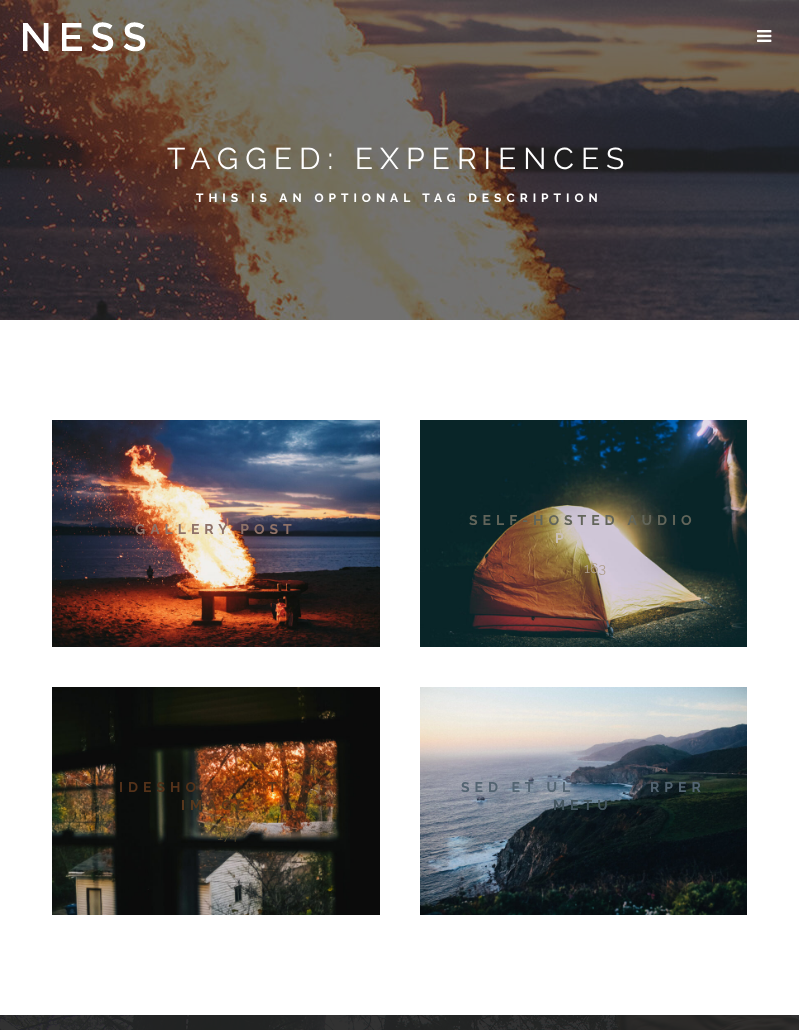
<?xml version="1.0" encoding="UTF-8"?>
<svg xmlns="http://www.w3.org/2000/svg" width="799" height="1030">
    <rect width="100%" height="100%" fill="#FFFFFF"/>
    <rect x="0" y="0" width="799" height="320" fill="#222222"/>
    <image x="0" y="0" width="799" height="320" href="img_03.png"/>
    <image x="23" y="22" width="123" height="30" href="img_01.png"/>
    <image x="757" y="30" width="15" height="12" href="img_02.png"/>
    <text x="167" y="169" font-family="Raleway" font-size="30" letter-spacing="7" fill="#FFFFFF">TAGGED: EXPERIENCES</text>
    <text x="196" y="202" font-family="Raleway" font-size="12" font-weight="700" letter-spacing="5" fill="#FFFFFF">THIS IS AN OPTIONAL TAG DESCRIPTION</text>
    <image x="52" y="420" width="328" height="227" href="img_04.png"/>
    <text x="135" y="534" font-family="Raleway" font-size="14" font-weight="700" letter-spacing="5" fill="#8F7268">GALLERY POST</text>
    <image x="420" y="420" width="327" height="227" href="img_05.png"/>
    <text x="469" y="525" font-family="Raleway" font-size="14" font-weight="700" letter-spacing="5" fill="#62655A">SELF-HOSTED AUDIO</text>
    <text x="555" y="543" font-family="Raleway" font-size="14" font-weight="700" letter-spacing="5" fill="#C9BEB5">P</text>
    <text x="584" y="573" font-family="Raleway" font-size="14" fill="#AE9E8D">163</text>
    <image x="52" y="687" width="328" height="228" href="img_06.png"/>
    <text x="119" y="792" font-family="Raleway" font-size="14" font-weight="700" letter-spacing="5" fill="#54321A">IDESHO</text>
    <text x="268" y="792" font-family="Raleway" font-size="14" font-weight="700" letter-spacing="5" fill="#54321A">T</text>
    <text x="181" y="810" font-family="Raleway" font-size="14" font-weight="700" letter-spacing="5" fill="#58381D">IMAGE</text>
    <text x="217" y="840" font-family="Raleway" font-size="14" fill="#52462C">174</text>
    <image x="420" y="687" width="327" height="228" href="img_07.png"/>
    <text x="461" y="792" font-family="Raleway" font-size="14" font-weight="700" letter-spacing="5" fill="#536471">SED ET UL</text>
    <text x="650" y="792" font-family="Raleway" font-size="14" font-weight="700" letter-spacing="5" fill="#536471">RPER</text>
    <text x="553" y="810" font-family="Raleway" font-size="14" font-weight="700" letter-spacing="5" fill="#44555E">METU</text>
    <rect x="0" y="1015" width="799" height="15" fill="#222222"/>
    <image x="0" y="1015" width="799" height="15" href="img_08.png"/>
</svg>
